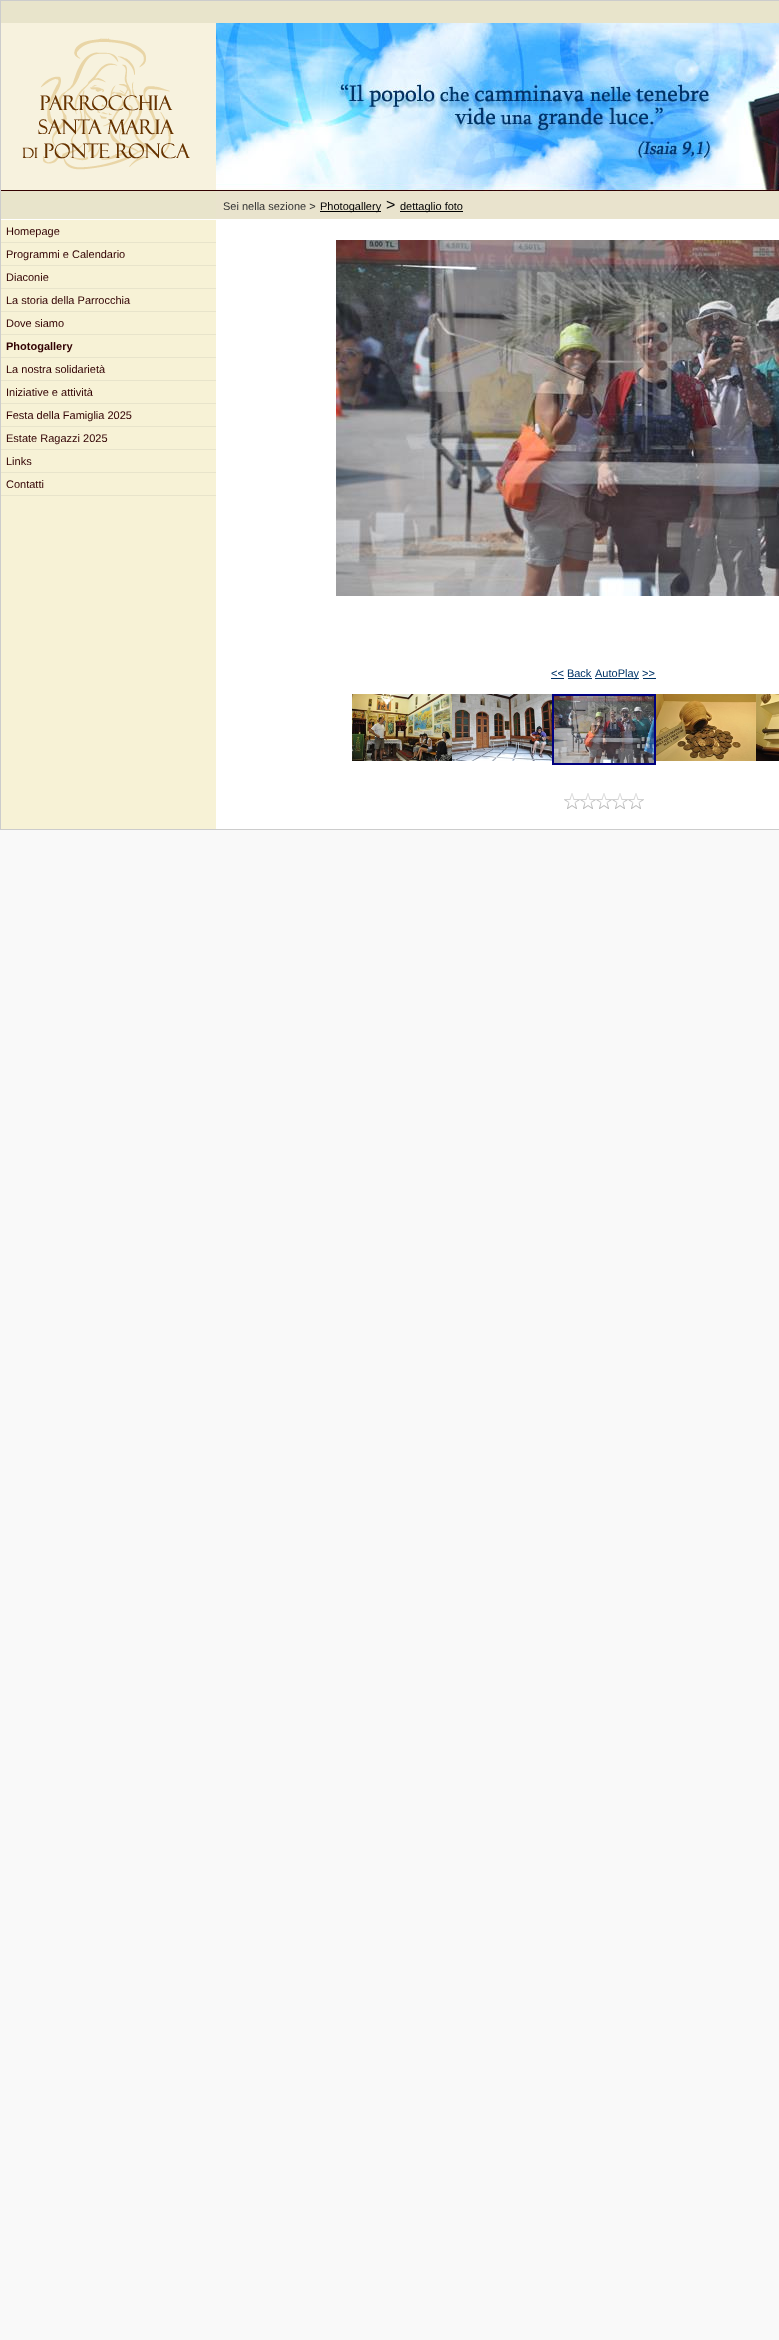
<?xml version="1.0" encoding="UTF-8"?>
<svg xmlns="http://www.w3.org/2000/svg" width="779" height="2340">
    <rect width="100%" height="100%" fill="#F9F9F9"/>
    <rect x="0.5" y="0.5" width="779" height="829" fill="none" stroke="#CCCCCC"/>
    <rect x="1" y="1" width="778" height="22" fill="#E8E4CB"/>
    <image x="1" y="23" width="215" height="168" href="img_01.png"/>
    <image x="216" y="23" width="563" height="168" href="img_02.png"/>
    <rect x="1" y="191" width="215" height="28" fill="#E8E4CB"/>
    <rect x="216" y="191" width="563" height="28" fill="#E9E3CD"/>
    <text x="223" y="210" font-family="Liberation Sans" font-size="11" fill="#333333">Sei nella sezione &gt;</text>
    <rect x="320" y="211" width="61" height="1" fill="#000000"/>
    <text x="320" y="210" font-family="Liberation Sans" font-size="11" fill="#000000">Photogallery</text>
    <text x="386" y="210" font-family="Liberation Sans" font-size="16" fill="#000000">&gt;</text>
    <rect x="400" y="211" width="63" height="1" fill="#000000"/>
    <text x="400" y="210" font-family="Liberation Sans" font-size="11" fill="#000000">dettaglio foto</text>
    <rect x="1" y="496" width="215" height="333" fill="#F7F2D6"/>
    <rect x="1" y="219" width="215" height="1" fill="#FFFFFF"/>
    <rect x="1" y="220" width="215" height="22" fill="#F7F2D6"/>
    <rect x="1" y="242" width="215" height="1" fill="#E8E4CB"/>
    <text x="6" y="235" font-family="Liberation Sans" font-size="11" fill="#310002">Homepage</text>
    <rect x="1" y="243" width="215" height="22" fill="#F7F2D6"/>
    <rect x="1" y="265" width="215" height="1" fill="#E8E4CB"/>
    <text x="6" y="258" font-family="Liberation Sans" font-size="11" fill="#310002">Programmi e Calendario</text>
    <rect x="1" y="266" width="215" height="22" fill="#F7F2D6"/>
    <rect x="1" y="288" width="215" height="1" fill="#E8E4CB"/>
    <text x="6" y="281" font-family="Liberation Sans" font-size="11" fill="#310002">Diaconie</text>
    <rect x="1" y="289" width="215" height="22" fill="#F7F2D6"/>
    <rect x="1" y="311" width="215" height="1" fill="#E8E4CB"/>
    <text x="6" y="304" font-family="Liberation Sans" font-size="11" fill="#310002">La storia della Parrocchia</text>
    <rect x="1" y="312" width="215" height="22" fill="#F7F2D6"/>
    <rect x="1" y="334" width="215" height="1" fill="#E8E4CB"/>
    <text x="6" y="327" font-family="Liberation Sans" font-size="11" fill="#310002">Dove siamo</text>
    <rect x="1" y="335" width="215" height="22" fill="#F7F2D6"/>
    <rect x="1" y="357" width="215" height="1" fill="#E8E4CB"/>
    <text x="6" y="350" font-family="Liberation Sans" font-size="11" font-weight="700" fill="#310002">Photogallery</text>
    <rect x="1" y="358" width="215" height="22" fill="#F7F2D6"/>
    <rect x="1" y="380" width="215" height="1" fill="#E8E4CB"/>
    <text x="6" y="373" font-family="Liberation Sans" font-size="11" fill="#310002">La nostra solidarietà</text>
    <rect x="1" y="381" width="215" height="22" fill="#F7F2D6"/>
    <rect x="1" y="403" width="215" height="1" fill="#E8E4CB"/>
    <text x="6" y="396" font-family="Liberation Sans" font-size="11" fill="#310002">Iniziative e attività</text>
    <rect x="1" y="404" width="215" height="22" fill="#F7F2D6"/>
    <rect x="1" y="426" width="215" height="1" fill="#E8E4CB"/>
    <text x="6" y="419" font-family="Liberation Sans" font-size="11" fill="#310002">Festa della Famiglia 2025</text>
    <rect x="1" y="427" width="215" height="22" fill="#F7F2D6"/>
    <rect x="1" y="449" width="215" height="1" fill="#E8E4CB"/>
    <text x="6" y="442" font-family="Liberation Sans" font-size="11" fill="#310002">Estate Ragazzi 2025</text>
    <rect x="1" y="450" width="215" height="22" fill="#F7F2D6"/>
    <rect x="1" y="472" width="215" height="1" fill="#E8E4CB"/>
    <text x="6" y="465" font-family="Liberation Sans" font-size="11" fill="#310002">Links</text>
    <rect x="1" y="473" width="215" height="22" fill="#F7F2D6"/>
    <rect x="1" y="495" width="215" height="1" fill="#E8E4CB"/>
    <text x="6" y="488" font-family="Liberation Sans" font-size="11" fill="#310002">Contatti</text>
    <rect x="216" y="219" width="563" height="610" fill="#FFFFFF"/>
    <image x="336" y="240" width="443" height="356" href="img_03.png"/>
    <text x="551" y="677" font-family="Liberation Sans" font-size="11" fill="#003366">&lt;&lt; Back</text>
    <rect x="551" y="678" width="13" height="1" fill="#003366"/>
    <rect x="595" y="678" width="44" height="1" fill="#003366"/>
    <text x="595" y="677" font-family="Liberation Sans" font-size="11" fill="#003366">AutoPlay &gt;&gt;</text>
    <rect x="568" y="678" width="24" height="1" fill="#003366"/>
    <rect x="643" y="678" width="13" height="1" fill="#003366"/>
    <image x="352" y="694" width="100" height="67" href="img_04.png"/>
    <image x="452" y="694" width="100" height="67" href="img_05.png"/>
    <rect x="553" y="695" width="102" height="69" fill="none" stroke="#000080" stroke-width="2"/>
    <image x="554" y="696" width="100" height="67" href="img_06.png"/>
    <image x="656" y="694" width="100" height="67" href="img_07.png"/>
    <image x="756" y="694" width="23" height="67" href="img_08.png"/>
    <image x="564" y="793" width="80" height="16" href="img_09.png"/>
</svg>
